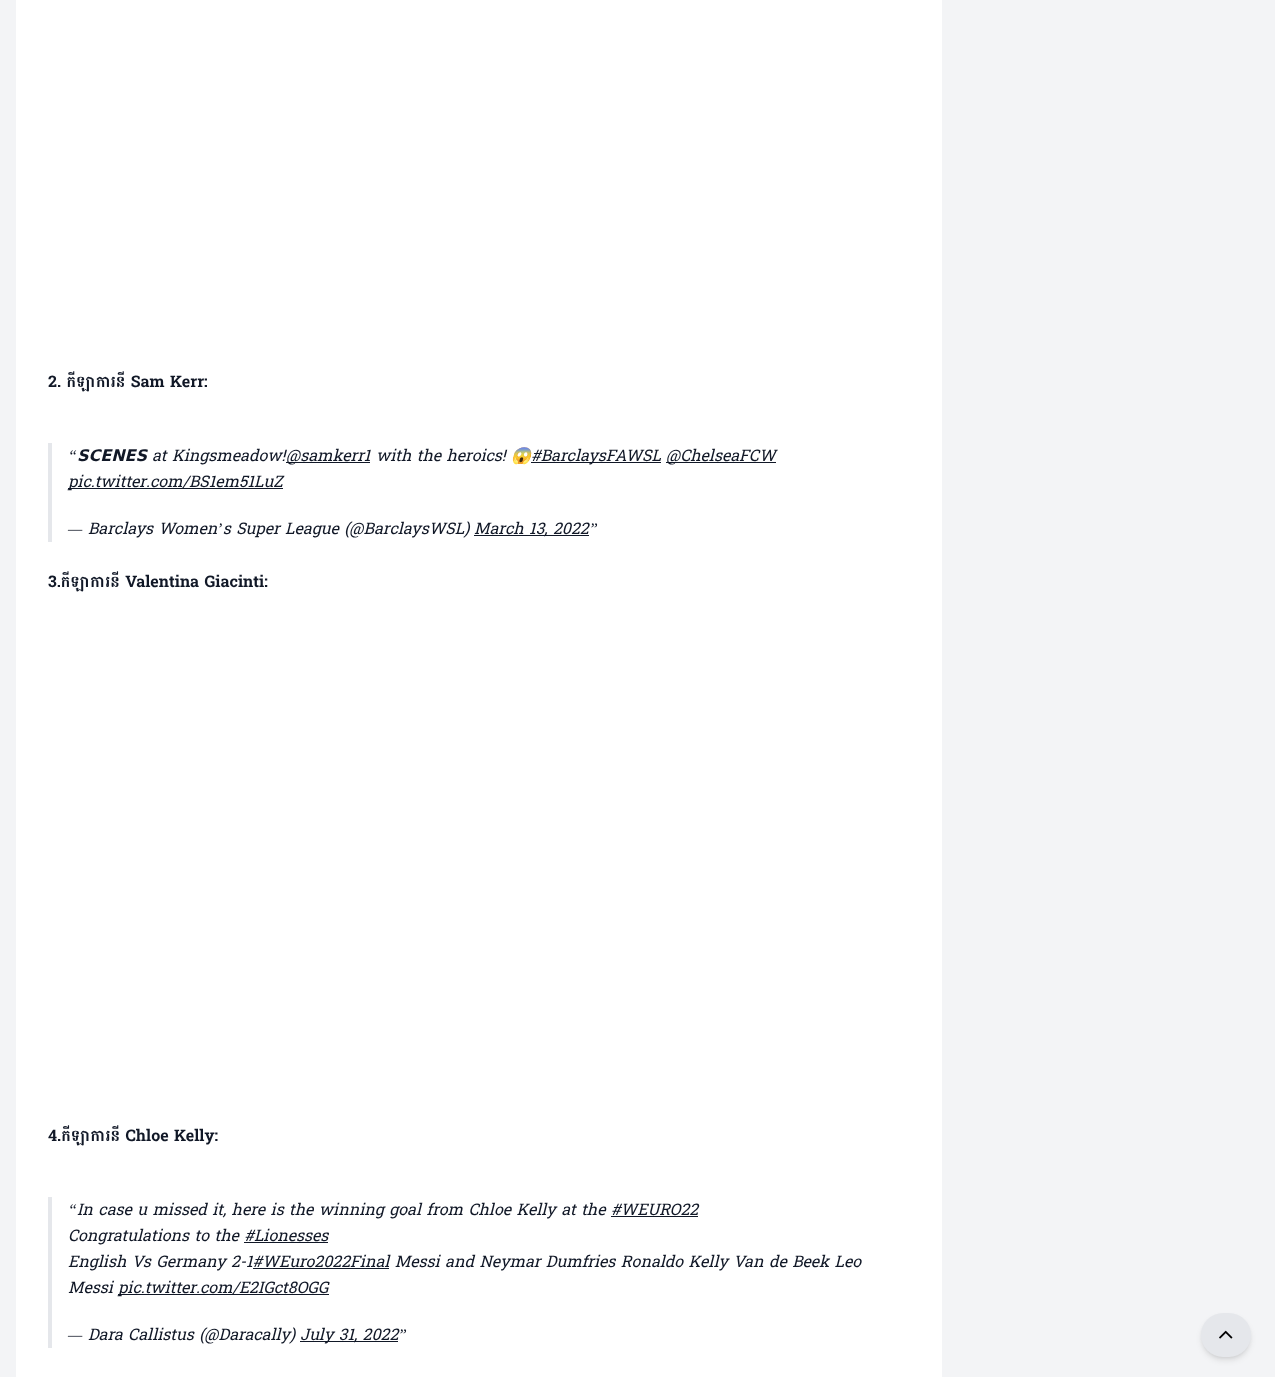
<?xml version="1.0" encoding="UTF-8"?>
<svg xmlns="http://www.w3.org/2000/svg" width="1275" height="1377">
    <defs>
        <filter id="blur1" x="-50%" y="-200%" width="200%" height="500%"><feGaussianBlur stdDeviation="2"/></filter>
        <filter id="blur2" x="-50%" y="-200%" width="200%" height="500%"><feGaussianBlur stdDeviation="3"/></filter>
    </defs>
    <rect width="100%" height="100%" fill="#F3F4F6"/>
    <rect x="16" y="0" width="926" height="1377" fill="#FFFFFF"/>
    <text x="48" y="387" font-family="Battambang" font-size="16" font-weight="700" fill="#111827">2. កីឡាការនី Sam Kerr:</text>
    <rect x="48" y="443" width="4" height="99" fill="#E5E7EB"/>
    <text x="68" y="461" font-family="Liberation Serif" font-size="16" font-style="italic" fill="#111827">“</text>
    <text x="77" y="461" font-family="DejaVu Sans" font-size="16" font-weight="700" font-style="italic" fill="#111827">𝗦𝗖𝗘𝗡𝗘𝗦</text>
    <text x="152" y="461" font-family="Battambang" font-size="16" font-style="italic" fill="#111827">at Kingsmeadow!</text>
    <rect x="286" y="462" width="84" height="1" fill="#111827"/>
    <text x="286" y="461" font-family="Battambang" font-size="16" font-style="italic" fill="#111827">@samkerr1 with the heroics!</text>
    <text x="511" y="461" font-family="Noto Color Emoji" font-size="16" font-style="italic" fill="#111827">😱</text>
    <rect x="531" y="462" width="130" height="1" fill="#111827"/>
    <text x="531" y="461" font-family="Battambang" font-size="16" font-style="italic" fill="#111827">#BarclaysFAWSL</text>
    <rect x="666" y="462" width="110" height="1" fill="#111827"/>
    <text x="666" y="461" font-family="Battambang" font-size="16" font-style="italic" fill="#111827">@ChelseaFCW</text>
    <rect x="68" y="488" width="215" height="1" fill="#111827"/>
    <text x="68" y="487" font-family="Battambang" font-size="16" font-style="italic" fill="#111827">pic.twitter.com/BS1em51LuZ</text>
    <text x="88" y="534" font-family="Battambang" font-size="16" font-style="italic" fill="#111827">Barclays Women s Super League (@BarclaysWSL)</text>
    <rect x="474" y="535" width="115" height="1" fill="#111827"/>
    <text x="474" y="534" font-family="Battambang" font-size="16" font-style="italic" fill="#111827">March 13, 2022</text>
    <text x="217" y="534" font-family="Liberation Serif" font-size="16" font-style="italic" fill="#111827">’</text>
    <text x="589" y="534" font-family="Liberation Serif" font-size="16" font-style="italic" fill="#111827">”</text>
    <text x="68" y="534" font-family="Liberation Serif" font-size="16" font-style="italic" fill="#111827">—</text>
    <text x="48" y="587" font-family="Battambang" font-size="16" font-weight="700" fill="#111827">3.កីឡាការនី Valentina Giacinti:</text>
    <text x="48" y="1141" font-family="Battambang" font-size="16" font-weight="700" fill="#111827">4.កីឡាការនី Chloe Kelly:</text>
    <rect x="48" y="1197" width="4" height="151" fill="#E5E7EB"/>
    <text x="68" y="1215" font-family="Liberation Serif" font-size="16" font-style="italic" fill="#111827">“</text>
    <text x="77" y="1215" font-family="Battambang" font-size="16" font-style="italic" fill="#111827">In case u missed it, here is the winning goal from Chloe Kelly at the #WEURO22</text>
    <rect x="611" y="1216" width="87" height="1" fill="#111827"/>
    <text x="68" y="1241" font-family="Battambang" font-size="16" font-style="italic" fill="#111827">Congratulations to the #Lionesses</text>
    <rect x="244" y="1242" width="84" height="1" fill="#111827"/>
    <text x="68" y="1267" font-family="Battambang" font-size="16" font-style="italic" fill="#111827">English Vs Germany 2-1#WEuro2022Final Messi and Neymar Dumfries Ronaldo Kelly Van de Beek Leo</text>
    <rect x="253" y="1268" width="136" height="1" fill="#111827"/>
    <text x="68" y="1293" font-family="Battambang" font-size="16" font-style="italic" fill="#111827">Messi</text>
    <rect x="118" y="1294" width="211" height="1" fill="#111827"/>
    <text x="118" y="1293" font-family="Battambang" font-size="16" font-style="italic" fill="#111827">pic.twitter.com/E2IGct8OGG</text>
    <text x="88" y="1340" font-family="Battambang" font-size="16" font-style="italic" fill="#111827">Dara Callistus (@Daracally)</text>
    <rect x="300" y="1341" width="98" height="1" fill="#111827"/>
    <text x="300" y="1340" font-family="Battambang" font-size="16" font-style="italic" fill="#111827">July 31, 2022</text>
    <text x="398" y="1340" font-family="Liberation Serif" font-size="16" font-style="italic" fill="#111827">”</text>
    <text x="68" y="1340" font-family="Liberation Serif" font-size="16" font-style="italic" fill="#111827">—</text>
    <rect x="1203" y="1317" width="46" height="40" rx="20" fill="#000000" fill-opacity="0.1" filter="url(#blur1)"/>
    <rect x="1202" y="1318" width="48" height="42" rx="21" fill="#000000" fill-opacity="0.1" filter="url(#blur2)"/>
    <rect x="1201" y="1313" width="50" height="44" rx="22" fill="#E5E7EB"/>
    <image x="1219" y="1330" width="14" height="9" href="img_01.png"/>
</svg>
